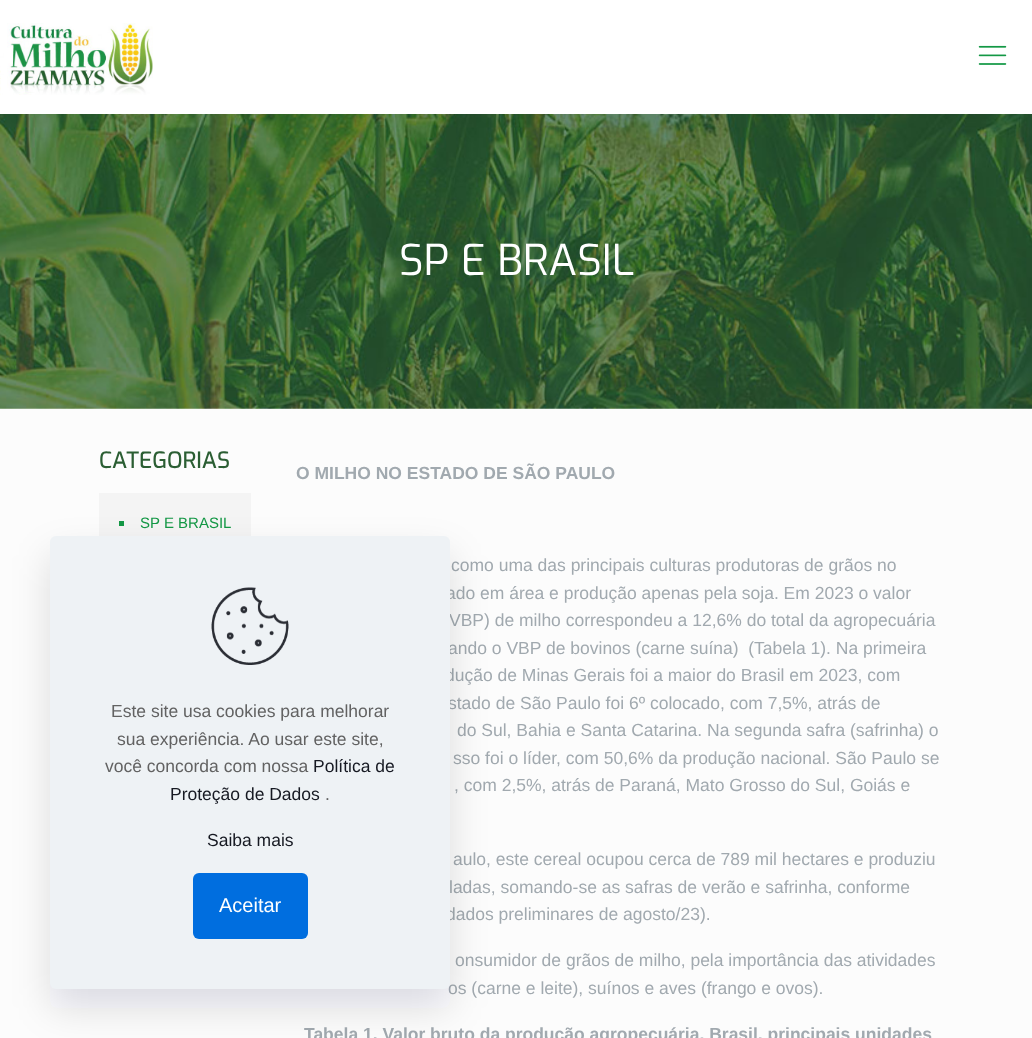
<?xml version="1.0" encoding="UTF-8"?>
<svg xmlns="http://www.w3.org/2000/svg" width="1032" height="1038">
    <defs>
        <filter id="blur1" x="-50%" y="-200%" width="200%" height="500%"><feGaussianBlur stdDeviation="19"/></filter>
    </defs>
    <rect width="100%" height="100%" fill="#FCFCFC"/>
    <image x="0" y="114" width="1032" height="295" href="img_01.png"/>
    <rect x="0" y="0" width="1032" height="114" fill="#FFFFFF"/>
    <image x="0" y="23" width="153" height="72" href="img_02.png"/>
    <image x="978" y="45" width="29" height="20" href="img_03.png"/>
    <text x="399" y="275" font-family="Exo" font-size="42.5" fill="#FFFFFF">SP E BRASIL</text>
    <text x="99" y="468" font-family="Exo" font-size="22.5" font-weight="500" fill="#2B5E33">CATEGORIAS</text>
    <rect x="99" y="493" width="152" height="43" fill="#F4F4F4"/>
    <rect x="119" y="521" width="5" height="5" fill="#139845"/>
    <text x="140" y="528" font-family="Liberation Sans" font-size="15" fill="#139845">SP E BRASIL</text>
    <text x="296" y="479" font-family="Liberation Sans" font-size="17.5" font-weight="700" fill="#A1A9AF">O MILHO NO ESTADO DE SÃO PAULO</text>
    <text x="451" y="571" font-family="Liberation Sans" font-size="17.5" fill="#A1A9AF">como uma das principais culturas produtoras de grãos no</text>
    <text x="446" y="599" font-family="Liberation Sans" font-size="17.5" fill="#A1A9AF">ado em área e produção apenas pela soja. Em 2023 o valor</text>
    <text x="449" y="626" font-family="Liberation Sans" font-size="17.5" fill="#A1A9AF">VBP) de milho correspondeu a 12,6% do total da agropecuária</text>
    <text x="448" y="654" font-family="Liberation Sans" font-size="17.5" fill="#A1A9AF" xml:space="preserve">ando o VBP de bovinos (carne suína)  (Tabela 1). Na primeira</text>
    <text x="445" y="681" font-family="Liberation Sans" font-size="17.5" fill="#A1A9AF">dução de Minas Gerais foi a maior do Brasil em 2023, com</text>
    <text x="448" y="709" font-family="Liberation Sans" font-size="17.5" fill="#A1A9AF">stado de São Paulo foi 6º colocado, com 7,5%, atrás de</text>
    <text x="457" y="736" font-family="Liberation Sans" font-size="17.5" fill="#A1A9AF">do Sul, Bahia e Santa Catarina. Na segunda safra (safrinha) o</text>
    <text x="453" y="764" font-family="Liberation Sans" font-size="17.5" fill="#A1A9AF">sso foi o líder, com 50,6% da produção nacional. São Paulo se</text>
    <text x="454" y="791" font-family="Liberation Sans" font-size="17.5" fill="#A1A9AF">, com 2,5%, atrás de Paraná, Mato Grosso do Sul, Goiás e</text>
    <text x="453" y="865" font-family="Liberation Sans" font-size="17.5" fill="#A1A9AF">aulo, este cereal ocupou cerca de 789 mil hectares e produziu</text>
    <text x="449" y="893" font-family="Liberation Sans" font-size="17.5" fill="#A1A9AF">ladas, somando-se as safras de verão e safrinha, conforme</text>
    <text x="446" y="920" font-family="Liberation Sans" font-size="17.5" fill="#A1A9AF">dados preliminares de agosto/23).</text>
    <text x="455" y="966" font-family="Liberation Sans" font-size="17.5" fill="#A1A9AF">onsumidor de grãos de milho, pela importância das atividades</text>
    <text x="448" y="994" font-family="Liberation Sans" font-size="17.5" fill="#A1A9AF">os (carne e leite), suínos e aves (frango e ovos).</text>
    <text x="304" y="1040" font-family="Liberation Sans" font-size="17.5" font-weight="700" fill="#A1A9AF">Tabela 1. Valor bruto da produção agropecuária, Brasil, principais unidades</text>
    <rect x="50" y="555" width="400" height="453" rx="6" fill="#010727" fill-opacity="0.13" filter="url(#blur1)"/>
    <rect x="50" y="536" width="400" height="453" rx="6" fill="#EEF2F5"/>
    <image x="211" y="587" width="78" height="78" href="img_04.png"/>
    <text x="111" y="717" font-family="Liberation Sans" font-size="17.5" fill="#626262">Este site usa cookies para melhorar</text>
    <text x="117" y="745" font-family="Liberation Sans" font-size="17.5" fill="#626262">sua experiência. Ao usar este site,</text>
    <text x="105" y="772" font-family="Liberation Sans" font-size="17.5" fill="#626262">você concorda com nossa</text>
    <text x="313" y="772" font-family="Liberation Sans" font-size="17.5" fill="#161922">Política de</text>
    <text x="170" y="800" font-family="Liberation Sans" font-size="17.5" fill="#161922">Proteção de Dados</text>
    <text x="325" y="800" font-family="Liberation Sans" font-size="17.5" fill="#626262">.</text>
    <text x="207" y="846" font-family="Liberation Sans" font-size="17.5" fill="#161922">Saiba mais</text>
    <rect x="193" y="873" width="115" height="66" rx="6" fill="#006EDF"/>
    <text x="219" y="912" font-family="Liberation Sans" font-size="20" fill="#FFFFFF">Aceitar</text>
</svg>
